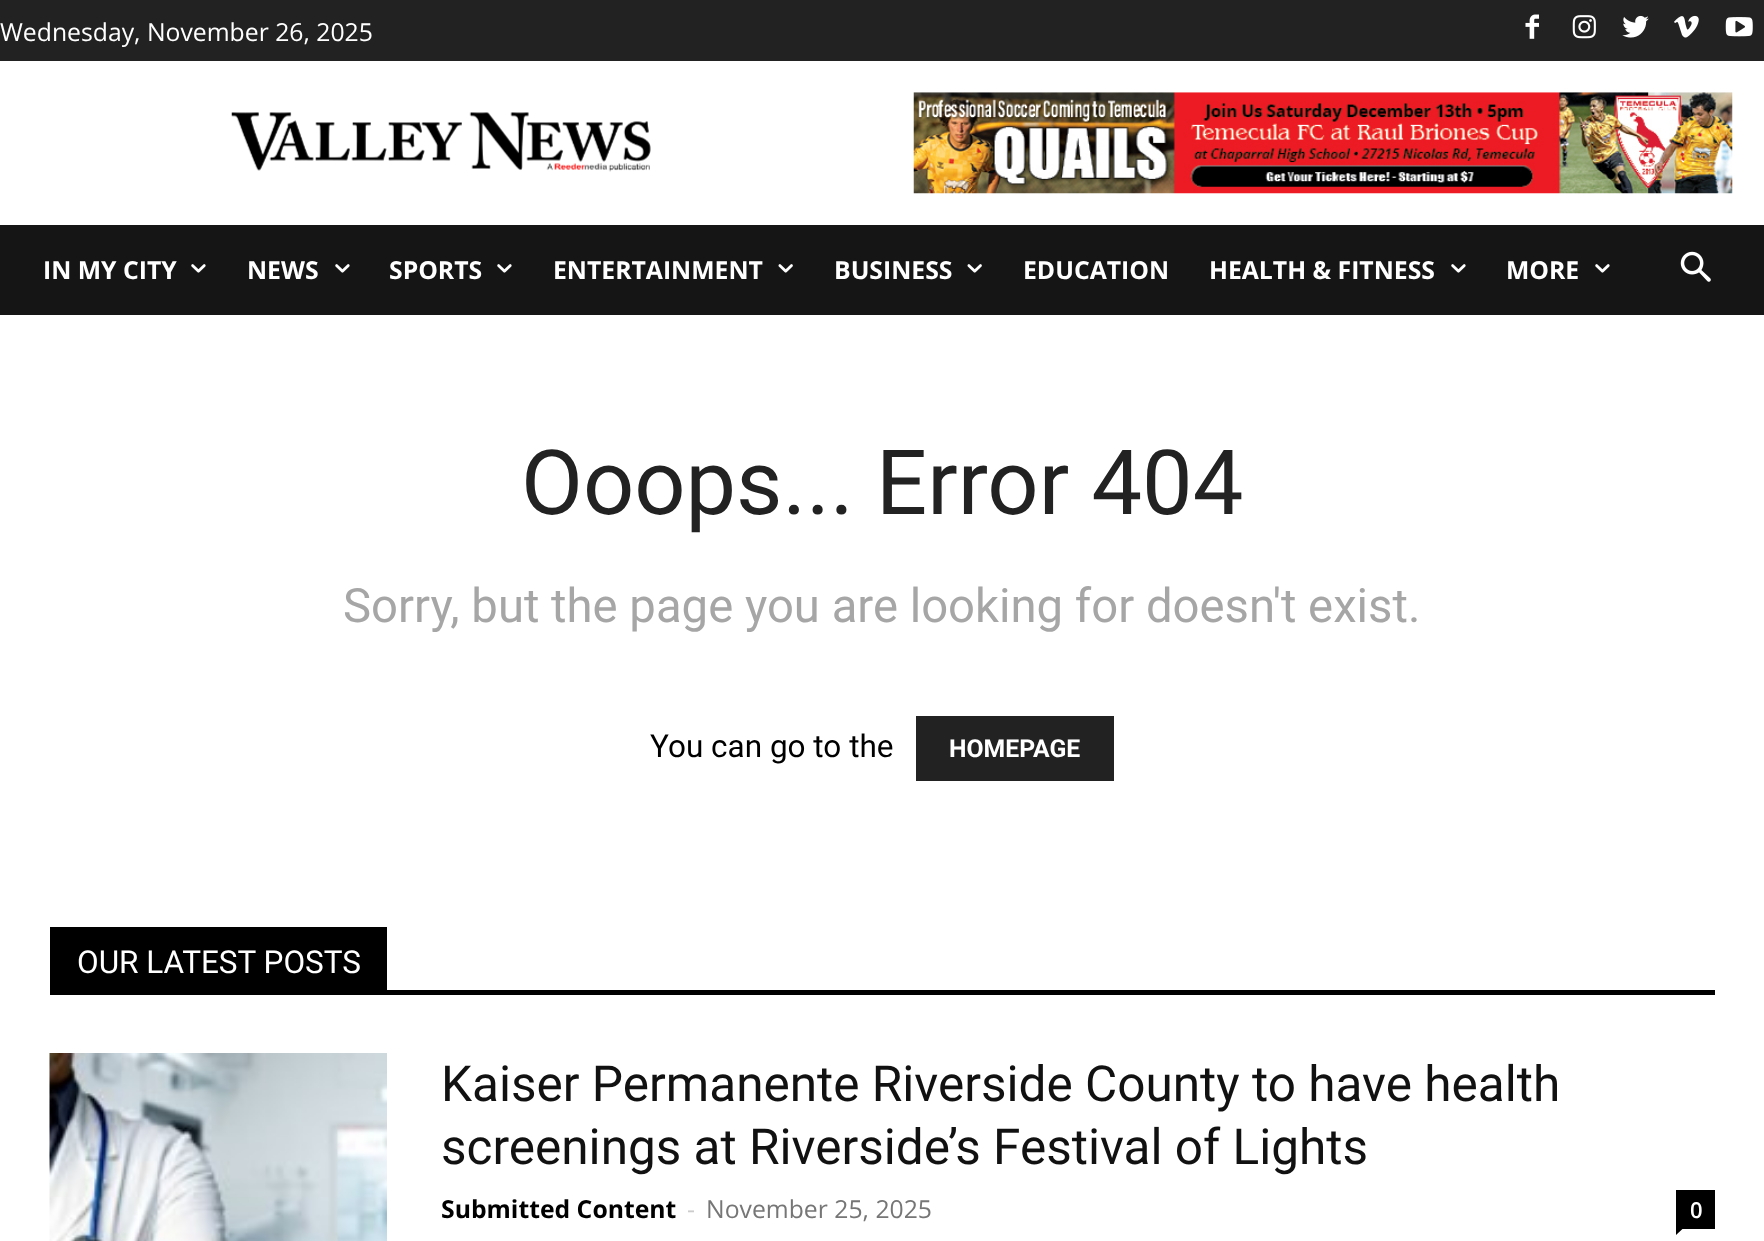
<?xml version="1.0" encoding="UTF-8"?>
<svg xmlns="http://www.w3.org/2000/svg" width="1764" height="1241">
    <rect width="100%" height="100%" fill="#FFFFFF"/>
    <rect x="0" y="0" width="1764" height="61" fill="#222222"/>
    <text x="0" y="41" font-family="Open Sans" font-size="24.75" fill="#FFFFFF">Wednesday, November 26, 2025</text>
    <image x="1525" y="14" width="14" height="25" href="img_01.png"/>
    <image x="1572" y="15" width="24" height="24" href="img_02.png"/>
    <image x="1622" y="15" width="27" height="23" href="img_03.png"/>
    <image x="1674" y="15" width="25" height="23" href="img_04.png"/>
    <image x="1725" y="17" width="28" height="20" href="img_05.png"/>
    <image x="231" y="112" width="420" height="60" href="img_06.png"/>
    <image x="913" y="92" width="820" height="102" href="img_07.png"/>
    <rect x="0" y="225" width="1764" height="90" fill="#151515"/>
    <text x="43" y="279" font-family="Open Sans" font-size="24.75" font-weight="700" fill="#FFFFFF">IN MY CITY</text>
    <image x="191" y="264" width="15" height="9" href="img_08.png"/>
    <text x="247" y="279" font-family="Open Sans" font-size="24.75" font-weight="700" fill="#FFFFFF">NEWS</text>
    <image x="335" y="264" width="15" height="9" href="img_08.png"/>
    <text x="389" y="279" font-family="Open Sans" font-size="24.75" font-weight="700" fill="#FFFFFF">SPORTS</text>
    <image x="497" y="264" width="15" height="9" href="img_08.png"/>
    <text x="553" y="279" font-family="Open Sans" font-size="24.75" font-weight="700" fill="#FFFFFF">ENTERTAINMENT</text>
    <image x="778" y="264" width="15" height="9" href="img_09.png"/>
    <text x="834" y="279" font-family="Open Sans" font-size="24.75" font-weight="700" fill="#FFFFFF">BUSINESS</text>
    <image x="967" y="264" width="15" height="9" href="img_09.png"/>
    <text x="1023" y="279" font-family="Open Sans" font-size="24.75" font-weight="700" fill="#FFFFFF">EDUCATION</text>
    <text x="1209" y="279" font-family="Open Sans" font-size="24.75" font-weight="700" fill="#FFFFFF">HEALTH &amp; FITNESS</text>
    <image x="1451" y="264" width="15" height="9" href="img_08.png"/>
    <text x="1506" y="279" font-family="Open Sans" font-size="24.75" font-weight="700" fill="#FFFFFF">MORE</text>
    <image x="1595" y="264" width="15" height="9" href="img_08.png"/>
    <image x="1680" y="251" width="31" height="31" href="img_10.png"/>
    <text x="521" y="514" font-family="Roboto" font-size="90" fill="#222222">Ooops... Error 404</text>
    <text x="343" y="622" font-family="Roboto" font-size="47.25" fill="#A6A6A6">Sorry, but the page you are looking for doesn't exist.</text>
    <text x="650" y="757" font-family="Roboto" font-size="31.5" fill="#000000">You can go to the</text>
    <rect x="916" y="716" width="198" height="65" fill="#222222"/>
    <text x="949" y="757" font-family="Roboto" font-size="24.75" font-weight="700" fill="#FFFFFF">HOMEPAGE</text>
    <rect x="50" y="990" width="1665" height="5" fill="#000000"/>
    <rect x="50" y="927" width="337" height="63" fill="#000000"/>
    <text x="77" y="973" font-family="Roboto" font-size="31.5" fill="#FFFFFF">OUR LATEST POSTS</text>
    <image x="49" y="1053" width="338" height="188" href="img_11.png"/>
    <text font-family="Roboto" font-size="49.5" fill="#111111">
        <tspan x="441" y="1101">Kaiser Permanente Riverside County to have health</tspan>
        <tspan x="441" y="1164">screenings at Riverside’s Festival of Lights</tspan>
    </text>
    <text x="441" y="1218" font-family="Open Sans" font-size="24.75" font-weight="700" fill="#000000">Submitted Content</text>
    <text x="687" y="1218" font-family="Open Sans" font-size="24.75" fill="#CCCCCC">-</text>
    <text x="706" y="1218" font-family="Open Sans" font-size="24.75" fill="#767676">November 25, 2025</text>
    <rect x="1676" y="1190" width="39" height="39" fill="#000000"/>
    <text x="1690" y="1218" font-family="Open Sans" font-size="22" font-weight="600" fill="#FFFFFF">0</text>
    <path d="M 1676 1228.5 H 1683 L 1676 1235 Z" fill="#000000"/>
</svg>
